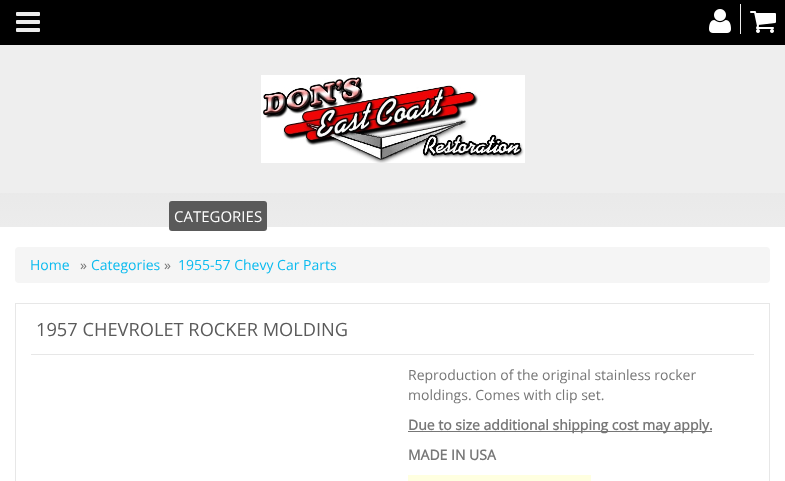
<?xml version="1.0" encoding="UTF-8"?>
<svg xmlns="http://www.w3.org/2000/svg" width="785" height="481">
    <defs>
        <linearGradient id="g1" gradientUnits="userSpaceOnUse" x1="393" y1="0" x2="393" y2="227"><stop offset="0" stop-color="#DCDCDC"/><stop offset="1" stop-color="#ECECEC"/></linearGradient>
    </defs>
    <rect width="100%" height="100%" fill="#FFFFFF"/>
    <rect x="0" y="193" width="785" height="34" fill="url(#g1)"/>
    <rect x="0" y="0" width="785" height="45" fill="#000000"/>
    <image x="16" y="12" width="24" height="20" href="img_01.png"/>
    <rect x="740" y="4" width="1" height="30" fill="#ECECEC"/>
    <image x="709" y="9" width="22" height="24" href="img_02.png"/>
    <image x="750" y="11" width="26" height="22" href="img_03.png"/>
    <rect x="0" y="45" width="785" height="148" fill="#EEEEEE"/>
    <image x="261" y="75" width="264" height="88" href="img_04.png"/>
    <rect x="169" y="201" width="98" height="30" rx="3" fill="#5A5A5A"/>
    <text x="174" y="222" font-family="Open Sans" font-size="15" fill="#FFFFFF">CATEGORIES</text>
    <rect x="15" y="247" width="755" height="36" rx="4" fill="#F5F5F5"/>
    <text x="30" y="270" font-family="Open Sans" font-size="14" fill="#0BBBEF">Home</text>
    <text x="80" y="270" font-family="Open Sans" font-size="14" fill="#777777">»</text>
    <text x="91" y="270" font-family="Open Sans" font-size="14" fill="#0BBBEF">Categories</text>
    <text x="164" y="270" font-family="Open Sans" font-size="14" fill="#777777">»</text>
    <text x="178" y="270" font-family="Open Sans" font-size="14" fill="#0BBBEF">1955-57 Chevy Car Parts</text>
    <rect x="15.5" y="303.5" width="754" height="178" fill="none" stroke="#E7E7E7"/>
    <rect x="31" y="354" width="723" height="1" fill="#E7E7E7"/>
    <text x="36" y="336" font-family="Open Sans" font-size="18.25" fill="#5A5A5A">1957 CHEVROLET ROCKER MOLDING</text>
    <text font-family="Open Sans" font-size="14" fill="#777777">
        <tspan x="408" y="380">Reproduction of the original stainless rocker</tspan>
        <tspan x="408" y="400">moldings. Comes with clip set.</tspan>
    </text>
    <rect x="408" y="431" width="304" height="1" fill="#777777"/>
    <text x="408" y="430" font-family="Open Sans" font-size="14" font-weight="700" fill="#777777">Due to size additional shipping cost may apply.</text>
    <text x="408" y="460" font-family="Open Sans" font-size="14" font-weight="700" fill="#777777">MADE IN USA</text>
    <rect x="408" y="475" width="183" height="6" fill="#FFFFE0"/>
</svg>
